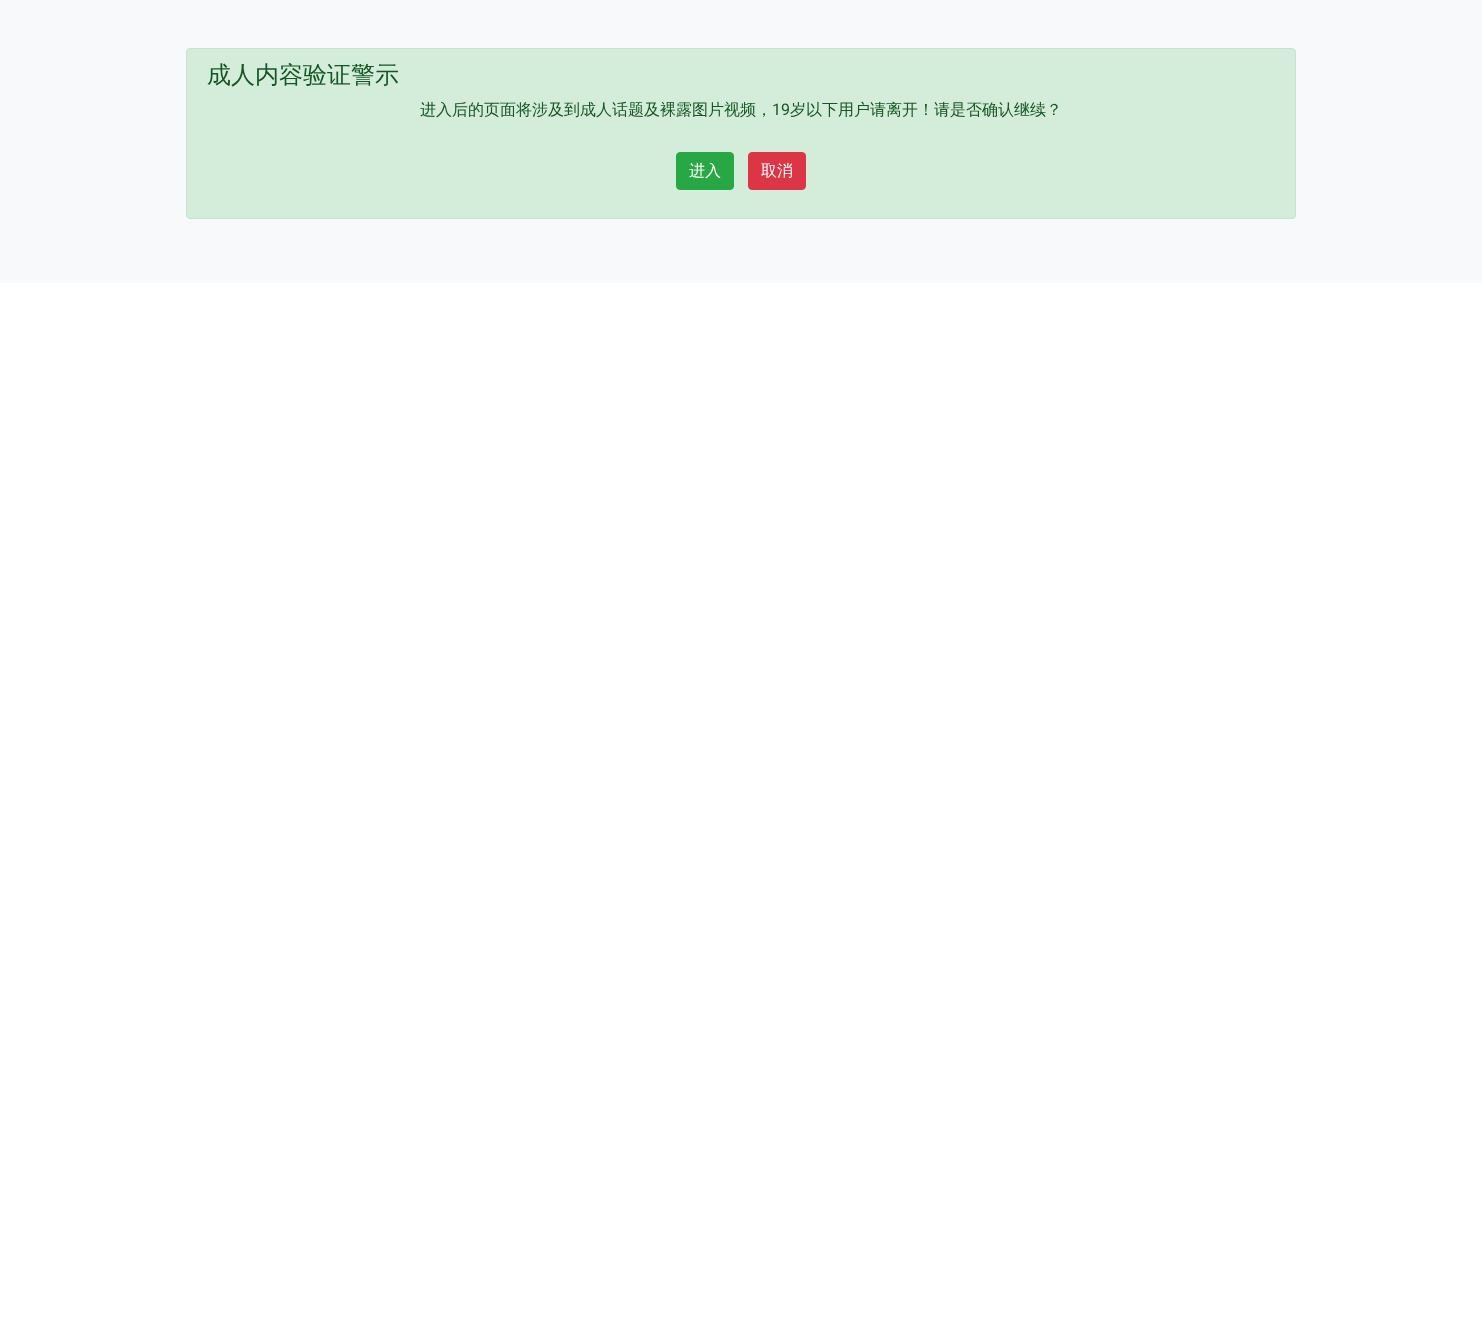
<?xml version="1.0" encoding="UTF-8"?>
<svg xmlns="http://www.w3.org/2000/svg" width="1482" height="1339">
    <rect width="100%" height="100%" fill="#FFFFFF"/>
    <rect x="0" y="0" width="1482" height="283" fill="#F8F9FA"/>
    <rect x="186.5" y="48.5" width="1109" height="170" rx="3.5" fill="#D4EDDA" stroke="#C3E6CB"/>
    <text x="207" y="83" font-family="WenQuanYi Zen Hei" font-size="24" font-weight="500" fill="#155724">成人内容验证警示</text>
    <text x="420" y="115" font-family="WenQuanYi Zen Hei" font-size="16" font-weight="500" fill="#155724">进入后的页面将涉及到成人话题及裸露图片视频，</text>
    <text x="772" y="115" font-family="Roboto" font-size="16" fill="#155724">19</text>
    <text x="790" y="115" font-family="WenQuanYi Zen Hei" font-size="16" font-weight="500" fill="#155724">岁以下用户请离开！请是否确认继续？</text>
    <rect x="676.5" y="152.5" width="57" height="37" rx="3.5" fill="#28A745" stroke="#28A745"/>
    <text x="689" y="176" font-family="WenQuanYi Zen Hei" font-size="16" font-weight="500" fill="#FFFFFF">进入</text>
    <rect x="748.5" y="152.5" width="57" height="37" rx="3.5" fill="#DC3545" stroke="#DC3545"/>
    <text x="761" y="176" font-family="WenQuanYi Zen Hei" font-size="16" font-weight="500" fill="#FFFFFF">取消</text>
</svg>
